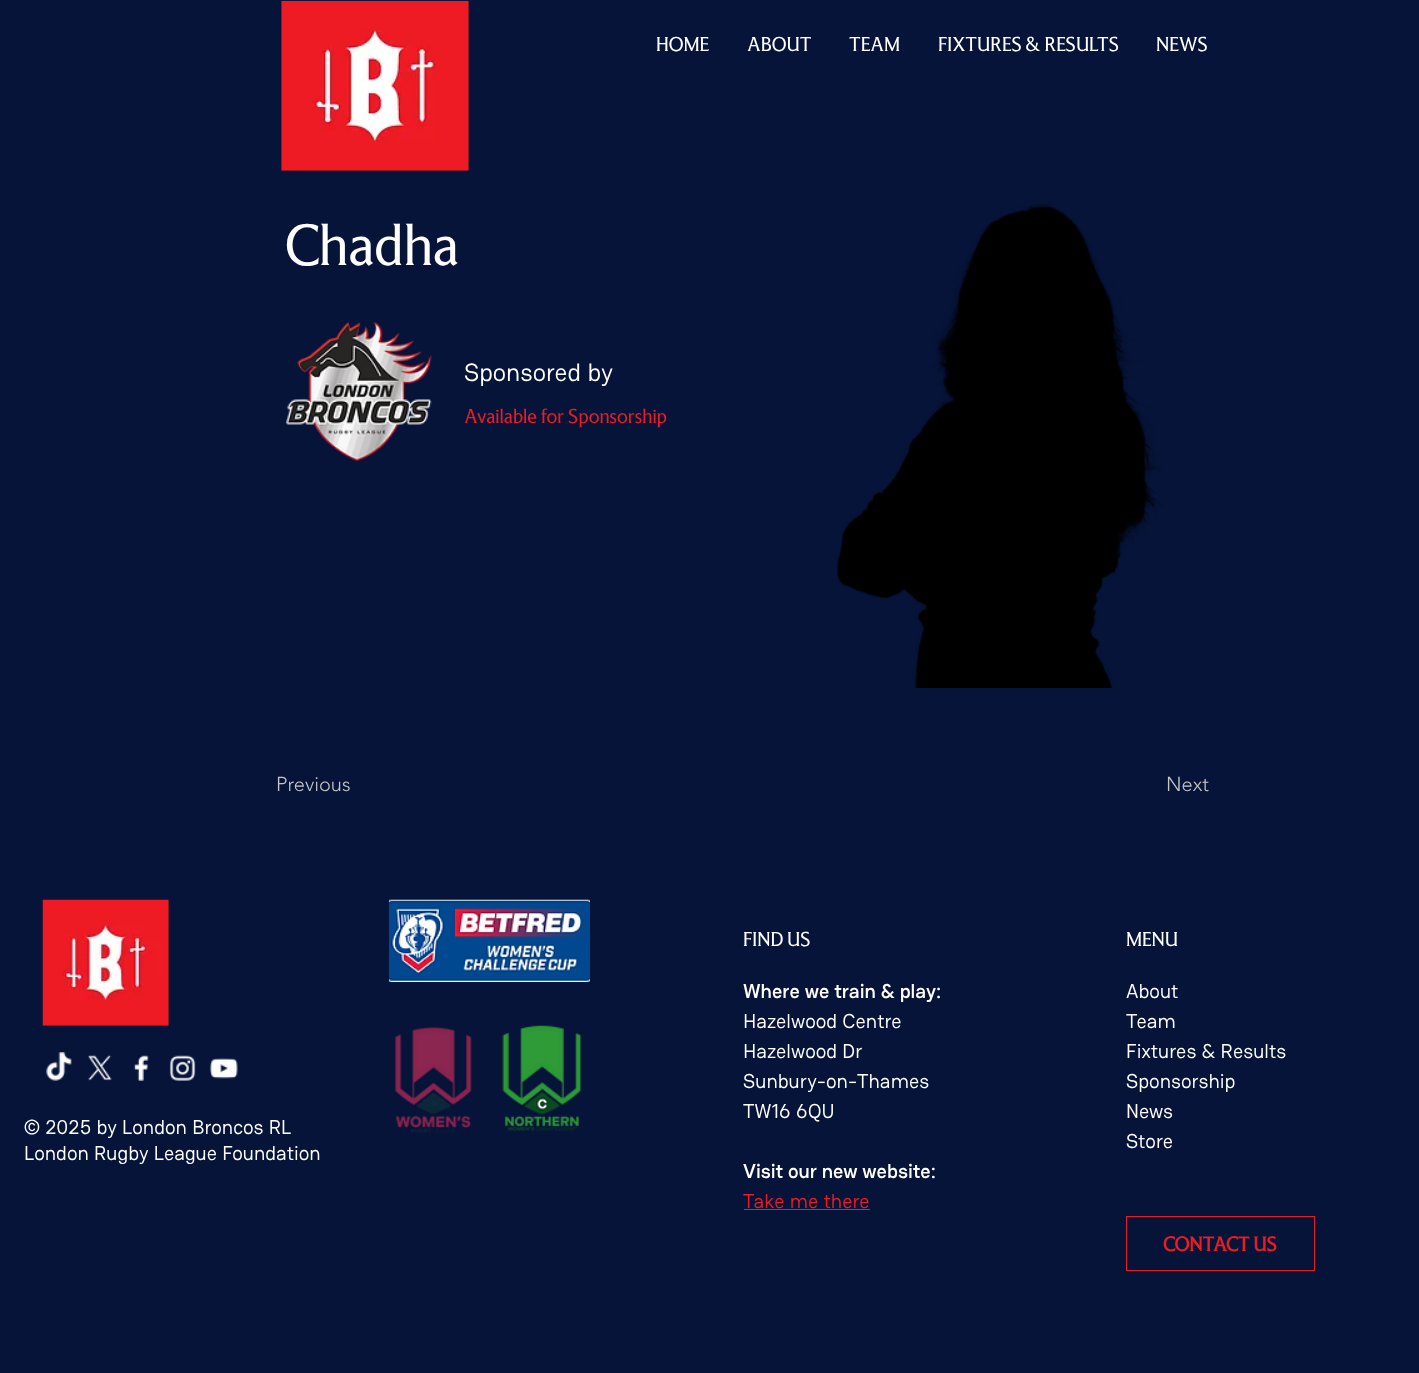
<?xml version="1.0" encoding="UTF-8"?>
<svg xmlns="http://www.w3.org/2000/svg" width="1419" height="1373">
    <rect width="100%" height="100%" fill="#061439"/>
    <image x="281" y="0" width="188" height="171" href="img_01.png"/>
    <text x="656" y="51" font-family="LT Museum" font-size="20" font-weight="300" fill="#FFFFFF">HOME</text>
    <text x="747" y="51" font-family="LT Museum" font-size="20" font-weight="300" fill="#FFFFFF">ABOUT</text>
    <text x="849" y="51" font-family="LT Museum" font-size="20" font-weight="300" fill="#FFFFFF">TEAM</text>
    <text x="938" y="51" font-family="LT Museum" font-size="20" font-weight="300" fill="#FFFFFF">FIXTURES &amp; RESULTS</text>
    <text x="1156" y="51" font-family="LT Museum" font-size="20" font-weight="300" fill="#FFFFFF">NEWS</text>
    <text x="285" y="265" font-family="LT Museum" font-size="57.5" font-weight="300" fill="#FFFFFF">Chadha</text>
    <image x="837" y="204" width="326" height="484" href="img_02.png"/>
    <image x="286" y="321" width="146" height="140" href="img_03.png"/>
    <text x="464" y="381" font-family="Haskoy" font-size="25" fill="#FFFFFF">Sponsored by</text>
    <text x="464" y="423" font-family="LT Museum" font-size="20" font-weight="300" fill="#ED1B24">Available for Sponsorship</text>
    <text x="276" y="791" font-family="'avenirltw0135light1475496'" font-size="20" font-weight="300" fill="#C7C7C7">Previous</text>
    <text x="1166" y="791" font-family="'avenirltw0135light1475496'" font-size="20" font-weight="300" fill="#C7C7C7">Next</text>
    <image x="42" y="899" width="127" height="127" href="img_04.png"/>
    <image x="46" y="1052" width="26" height="29" href="img_05.png"/>
    <image x="87" y="1055" width="25" height="26" href="img_06.png"/>
    <image x="133" y="1055" width="16" height="26" href="img_07.png"/>
    <image x="169" y="1055" width="27" height="26" href="img_08.png"/>
    <image x="209" y="1058" width="29" height="21" href="img_09.png"/>
    <text font-family="Haskoy" font-size="20" fill="#FFFFFF">
        <tspan x="24" y="1134">© 2025 by London Broncos RL</tspan>
        <tspan x="24" y="1160">London Rugby League Foundation</tspan>
    </text>
    <image x="388" y="899" width="202" height="83" href="img_10.png"/>
    <image x="394" y="1027" width="78" height="106" href="img_11.png"/>
    <image x="502" y="1025" width="80" height="106" href="img_12.png"/>
    <text x="743" y="946" font-family="LT Museum" font-size="20" font-weight="300" fill="#FFFFFF">FIND US</text>
    <text x="743" y="998" font-family="Haskoy" font-size="20" font-weight="600" fill="#FFFFFF">Where we train &amp; play:</text>
    <text font-family="Haskoy" font-size="20" fill="#FFFFFF">
        <tspan x="743" y="1028">Hazelwood Centre</tspan>
        <tspan x="743" y="1058">Hazelwood Dr</tspan>
        <tspan x="743" y="1088">Sunbury-on-Thames</tspan>
        <tspan x="743" y="1118">TW16 6QU</tspan>
    </text>
    <text x="743" y="1178" font-family="Haskoy" font-size="20" font-weight="600" fill="#FFFFFF">Visit our new website:</text>
    <text x="743" y="1208" font-family="Haskoy" font-size="20" fill="#ED1B24">Take me there</text>
    <rect x="744" y="1209" width="126" height="1" fill="#ED1B24"/>
    <text x="1126" y="946" font-family="LT Museum" font-size="20" font-weight="300" fill="#FFFFFF">MENU</text>
    <text font-family="Haskoy" font-size="20" fill="#FFFFFF">
        <tspan x="1126" y="998">About</tspan>
        <tspan x="1126" y="1028">Team</tspan>
        <tspan x="1126" y="1058">Fixtures &amp; Results</tspan>
        <tspan x="1126" y="1088">Sponsorship</tspan>
        <tspan x="1126" y="1118">News</tspan>
        <tspan x="1126" y="1148">Store</tspan>
    </text>
    <rect x="1126.5" y="1216.5" width="188" height="54" fill="none" stroke="#ED1B24"/>
    <text x="1163" y="1251" font-family="LT Museum" font-size="20" font-weight="700" fill="#ED1B24">CONTACT US</text>
</svg>
